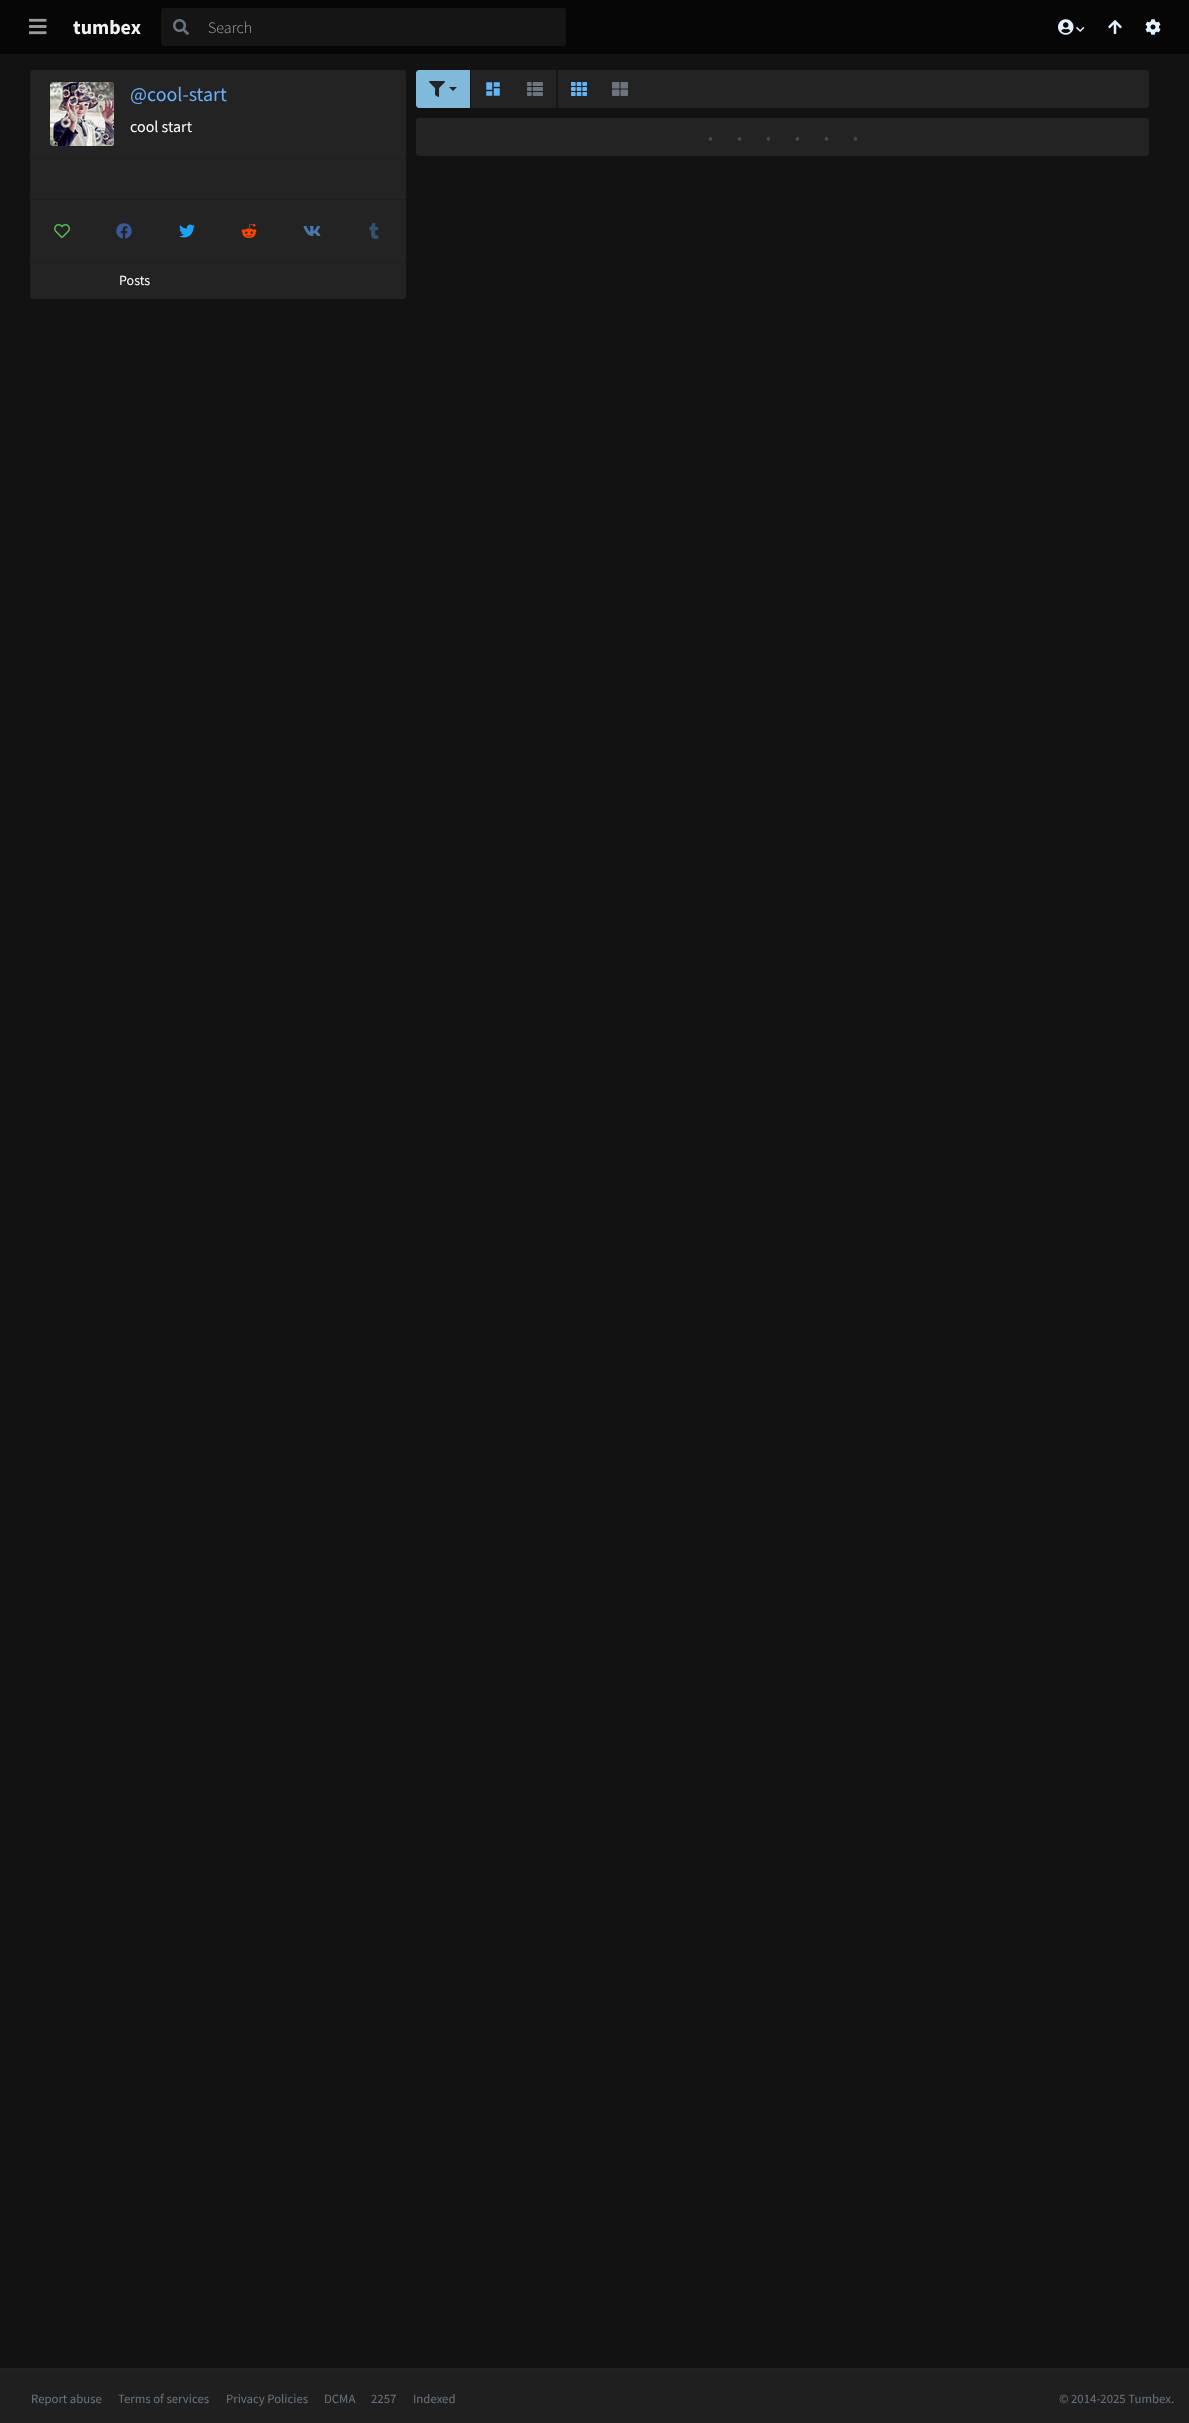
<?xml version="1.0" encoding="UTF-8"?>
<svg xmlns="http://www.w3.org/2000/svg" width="1189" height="2423">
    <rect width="100%" height="100%" fill="#121212"/>
    <rect x="0" y="0" width="1189" height="54" fill="#060606"/>
    <image x="29" y="18" width="18" height="17" href="img_01.png"/>
    <text x="73" y="34" font-family="Source Sans Pro" font-size="20" font-weight="700" fill="#F4F1EF">tumbex</text>
    <rect x="161" y="8" width="405" height="38" rx="3" fill="#151515"/>
    <image x="173" y="19" width="16" height="16" href="img_02.png"/>
    <text x="208" y="33" font-family="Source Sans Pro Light" font-size="16" font-weight="300" fill="#9EA9AE">Search</text>
    <image x="1058" y="19" width="16" height="16" href="img_03.png"/>
    <image x="1076" y="27" width="9" height="5" href="img_04.png"/>
    <image x="1108" y="20" width="14" height="14" href="img_05.png"/>
    <image x="1145" y="19" width="16" height="16" href="img_06.png"/>
    <rect x="30" y="70" width="376" height="229" rx="3" fill="#232323"/>
    <rect x="30" y="158" width="376" height="1" fill="#1E1E1E"/>
    <image x="50" y="82" width="64" height="64" href="img_07.png"/>
    <text x="130" y="101" font-family="Source Sans Pro" font-size="20" fill="#6AB0FB">@cool-start</text>
    <text x="130" y="132" font-family="Source Sans Pro" font-size="16" fill="#FFFFFF">cool start</text>
    <rect x="30" y="199" width="376" height="1" fill="#1E1E1E"/>
    <rect x="30" y="262" width="376" height="1" fill="#1E1E1E"/>
    <image x="54" y="224" width="16" height="14" href="img_08.png"/>
    <image x="116" y="223" width="16" height="16" href="img_09.png"/>
    <image x="179" y="224" width="16" height="14" href="img_10.png"/>
    <image x="241" y="224" width="16" height="14" href="img_11.png"/>
    <image x="303" y="226" width="18" height="10" href="img_12.png"/>
    <image x="369" y="223" width="10" height="16" href="img_13.png"/>
    <text x="119" y="285" font-family="Source Sans Pro" font-size="14" fill="#FFFFFF">Posts</text>
    <rect x="416" y="70" width="733" height="38" rx="3" fill="#232323"/>
    <rect x="470" y="70" width="1" height="38" fill="#151515"/>
    <path d="M 419 70 H 470 V 108 H 419 C 417.5 108 416 106.5 416 105 V 73 C 416 71.5 417.5 70 419 70 Z" fill="#81B9DA"/>
    <image x="429" y="81" width="16" height="16" href="img_14.png"/>
    <path d="M 449 87 H 457 L 453 91 Z" fill="#212529"/>
    <rect x="556" y="70" width="2" height="38" fill="#151515"/>
    <image x="486" y="82" width="14" height="14" href="img_15.png"/>
    <image x="527" y="82" width="16" height="14" href="img_16.png"/>
    <image x="571" y="82" width="16" height="14" href="img_17.png"/>
    <image x="612" y="82" width="16" height="14" href="img_18.png"/>
    <rect x="416" y="118" width="733" height="38" rx="3" fill="#232323"/>
    <text x="708" y="143" font-family="Source Sans Pro" font-size="16" fill="#4C4645">•</text>
    <text x="737" y="143" font-family="Source Sans Pro" font-size="16" fill="#4C4645">•</text>
    <text x="766" y="143" font-family="Source Sans Pro" font-size="16" fill="#4C4645">•</text>
    <text x="795" y="143" font-family="Source Sans Pro" font-size="16" fill="#4C4645">•</text>
    <text x="824" y="143" font-family="Source Sans Pro" font-size="16" fill="#4C4645">•</text>
    <text x="853" y="143" font-family="Source Sans Pro" font-size="16" fill="#4C4645">•</text>
    <rect x="0" y="2373" width="1189" height="50" fill="#1F1F1F"/>
    <rect x="0" y="2368" width="1189" height="5" fill="#212121"/>
    <text x="31" y="2403" font-family="Source Sans Pro" font-size="12.75" fill="#6C757D">Report abuse</text>
    <text x="118" y="2403" font-family="Source Sans Pro" font-size="12.75" fill="#6C757D">Terms of services</text>
    <text x="226" y="2403" font-family="Source Sans Pro" font-size="12.75" fill="#6C757D">Privacy Policies</text>
    <text x="324" y="2403" font-family="Source Sans Pro" font-size="12.75" fill="#6C757D">DCMA</text>
    <text x="371" y="2403" font-family="Source Sans Pro" font-size="12.75" fill="#6C757D">2257</text>
    <text x="413" y="2403" font-family="Source Sans Pro" font-size="12.75" fill="#6C757D">Indexed</text>
    <text x="1059" y="2403" font-family="Source Sans Pro" font-size="12.75" fill="#6C757D">© 2014-2025 Tumbex.</text>
</svg>
